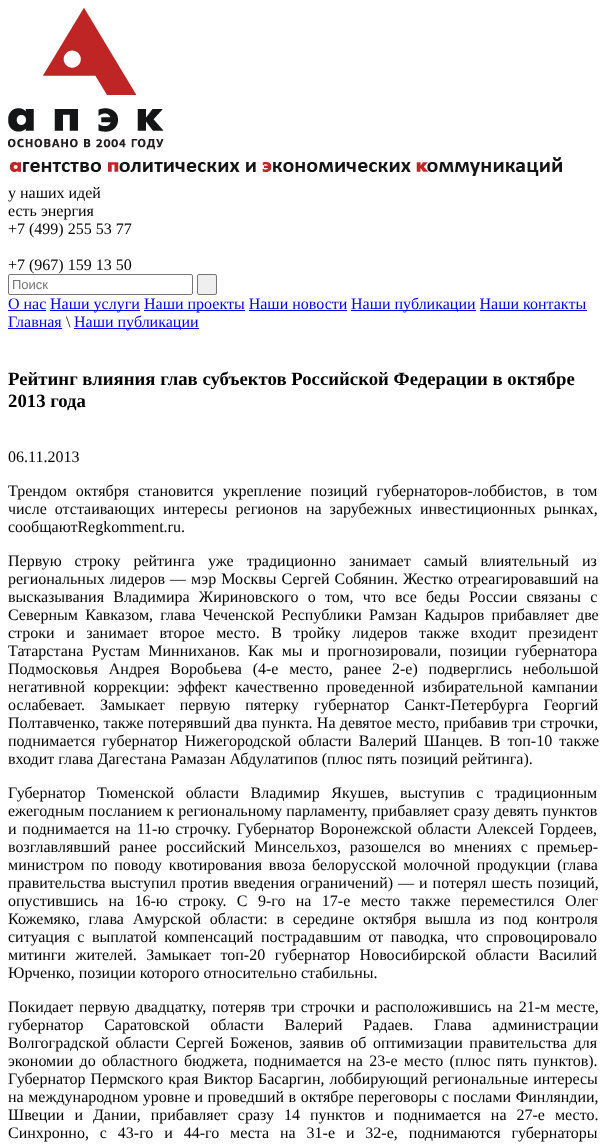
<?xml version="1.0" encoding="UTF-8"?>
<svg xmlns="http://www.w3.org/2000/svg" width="606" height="1144">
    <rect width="100%" height="100%" fill="#FFFFFF"/>
    <image x="8" y="8" width="156" height="142" href="img_01.png"/>
    <image x="8" y="156" width="554" height="22" href="img_02.png"/>
    <text font-family="Liberation Serif" font-size="16" fill="#000000">
        <tspan x="8" y="198">у наших идей</tspan>
        <tspan x="8" y="216">есть энергия</tspan>
        <tspan x="8" y="234">+7 (499) 255 53 77</tspan>
    </text>
    <text x="8" y="270" font-family="Liberation Serif" font-size="16" fill="#000000">+7 (967) 159 13 50</text>
    <rect x="8.5" y="274.5" width="184" height="20" rx="1.5" fill="none" stroke="#767676"/>
    <text x="12" y="289" font-family="Liberation Sans" font-size="13" fill="#757575">Поиск</text>
    <rect x="197.5" y="274.5" width="19" height="20" rx="1.5" fill="#EFEFEF" stroke="#767676"/>
    <text x="8" y="309" font-family="Liberation Serif" font-size="16" fill="#0000EE">О нас</text>
    <rect x="8" y="310" width="38" height="1" fill="#0000EE"/>
    <rect x="50" y="310" width="90" height="1" fill="#0000EE"/>
    <text x="50" y="309" font-family="Liberation Serif" font-size="16" fill="#0000EE">Наши услуги</text>
    <rect x="144" y="310" width="101" height="1" fill="#0000EE"/>
    <text x="144" y="309" font-family="Liberation Serif" font-size="16" fill="#0000EE">Наши проекты Наши новости</text>
    <rect x="351" y="310" width="125" height="1" fill="#0000EE"/>
    <text x="351" y="309" font-family="Liberation Serif" font-size="16" fill="#0000EE">Наши публикации Наши контакты</text>
    <rect x="249" y="310" width="98" height="1" fill="#0000EE"/>
    <rect x="480" y="310" width="107" height="1" fill="#0000EE"/>
    <text x="8" y="327" font-family="Liberation Serif" font-size="16" fill="#0000EE">Главная</text>
    <rect x="8" y="328" width="54" height="1" fill="#0000EE"/>
    <text x="66" y="327" font-family="Liberation Serif" font-size="16" fill="#000000">\</text>
    <rect x="74" y="328" width="125" height="1" fill="#0000EE"/>
    <text x="74" y="327" font-family="Liberation Serif" font-size="16" fill="#0000EE">Наши публикации</text>
    <text font-family="Liberation Serif" font-size="18.75" font-weight="700" fill="#000000">
        <tspan x="8" y="385">Рейтинг влияния глав субъектов Российской Федерации в октябре</tspan>
        <tspan x="8" y="407">2013 года</tspan>
    </text>
    <text x="8" y="462" font-family="Liberation Serif" font-size="16" fill="#000000">06.11.2013</text>
    <text font-family="Liberation Serif" font-size="16" fill="#000000">
        <tspan x="8" y="496" word-spacing="5">Трендом октября становится укрепление позиций губернаторов-лоббистов, в том</tspan>
        <tspan x="8" y="514" word-spacing="4">числе отстаивающих интересы регионов на зарубежных инвестиционных рынках,</tspan>
        <tspan x="8" y="532">сообщаютRegkomment.ru.</tspan>
    </text>
    <text font-family="Liberation Serif" font-size="16" fill="#000000">
        <tspan x="8" y="566" word-spacing="9">Первую строку рейтинга уже традиционно занимает самый влиятельный из</tspan>
        <tspan x="8" y="584" word-spacing="1">региональных лидеров — мэр Москвы Сергей Собянин. Жестко отреагировавший на</tspan>
        <tspan x="8" y="602" word-spacing="5.25">высказывания Владимира Жириновского о том, что все беды России связаны с</tspan>
        <tspan x="8" y="620" word-spacing="3.25">Северным Кавказом, глава Чеченской Республики Рамзан Кадыров прибавляет две</tspan>
        <tspan x="8" y="638" word-spacing="7.5">строки и занимает второе место. В тройку лидеров также входит президент</tspan>
        <tspan x="8" y="656" word-spacing="4.25">Татарстана Рустам Минниханов. Как мы и прогнозировали, позиции губернатора</tspan>
        <tspan x="8" y="674" word-spacing="6.75">Подмосковья Андрея Воробьева (4-е место, ранее 2-е) подверглись небольшой</tspan>
        <tspan x="8" y="692" word-spacing="4.25">негативной коррекции: эффект качественно проведенной избирательной кампании</tspan>
        <tspan x="8" y="710" word-spacing="11">ослабевает. Замыкает первую пятерку губернатор Санкт-Петербурга Георгий</tspan>
        <tspan x="8" y="728" word-spacing="0.25">Полтавченко, также потерявший два пункта. На девятое место, прибавив три строчки,</tspan>
        <tspan x="8" y="746" word-spacing="3">поднимается губернатор Нижегородской области Валерий Шанцев. В топ-10 также</tspan>
        <tspan x="8" y="764">входит глава Дагестана Рамазан Абдулатипов (плюс пять позиций рейтинга).</tspan>
    </text>
    <text font-family="Liberation Serif" font-size="16" fill="#000000">
        <tspan x="8" y="798" word-spacing="7.5">Губернатор Тюменской области Владимир Якушев, выступив с традиционным</tspan>
        <tspan x="8" y="816" word-spacing="0.25">ежегодным посланием к региональному парламенту, прибавляет сразу девять пунктов</tspan>
        <tspan x="8" y="834" word-spacing="1.75">и поднимается на 11-ю строчку. Губернатор Воронежской области Алексей Гордеев,</tspan>
        <tspan x="8" y="852" word-spacing="4.75">возглавлявший ранее российский Минсельхоз, разошелся во мнениях с премьер-</tspan>
        <tspan x="8" y="870">министро</tspan>
    </text>
    <text x="74" y="870" word-spacing="2.75" font-family="Liberation Serif" font-size="16" fill="#000000">м по поводу квотирования ввоза белорусской молочной продукции (глава</text>
    <text font-family="Liberation Serif" font-size="16" fill="#000000">
        <tspan x="8" y="888" word-spacing="1">правительства выступил против введения ограничений) — и потерял шесть позиций,</tspan>
        <tspan x="8" y="906" word-spacing="6.4">опустившись на 16-ю строку. С 9-го на 17-е место также переместился Олег</tspan>
        <tspan x="8" y="924" word-spacing="4.75">Кожемяко, глава Амурской области: в середине октября вышла из под контроля</tspan>
        <tspan x="8" y="942" word-spacing="3.5">ситуация с выплатой компенсаций пострадавшим от паводка, что спровоцировало</tspan>
        <tspan x="8" y="960" word-spacing="5.5">митинги жителей. Замыкает топ-20 губернатор Новосибирской области Василий</tspan>
        <tspan x="8" y="978">Юрченко, позиции которого относительно стабильны.</tspan>
    </text>
    <text font-family="Liberation Serif" font-size="16" fill="#000000">
        <tspan x="8" y="1012" word-spacing="1.75">Покидает первую двадцатку, потеряв три строчки и расположившись на 21-м месте,</tspan>
        <tspan x="8" y="1030" word-spacing="16.75">губернатор Саратовской области Валерий Радаев. Глава администрации</tspan>
        <tspan x="8" y="1048" word-spacing="2.5">Волгоградской области Сергей Боженов, заявив об оптимизации правительства для</tspan>
        <tspan x="8" y="1066" word-spacing="2.25">экономии до областного бюджета, поднимается на 23-е место (плюс пять пунктов).</tspan>
        <tspan x="8" y="1084" word-spacing="1">Губернатор Пермского края Виктор Басаргин, лоббирующий региональные интересы</tspan>
        <tspan x="8" y="1102" word-spacing="0.5">на международном уровне и проведший в октябре переговоры с послами Финляндии,</tspan>
        <tspan x="8" y="1120" word-spacing="6">Швеции и Дании, прибавляет сразу 14 пунктов и поднимается на 27-е место.</tspan>
        <tspan x="8" y="1138" word-spacing="6.9">Синхронно, с 43-го и 44-го места на 31-е и 32-е, поднимаются губернаторы</tspan>
    </text>
</svg>
